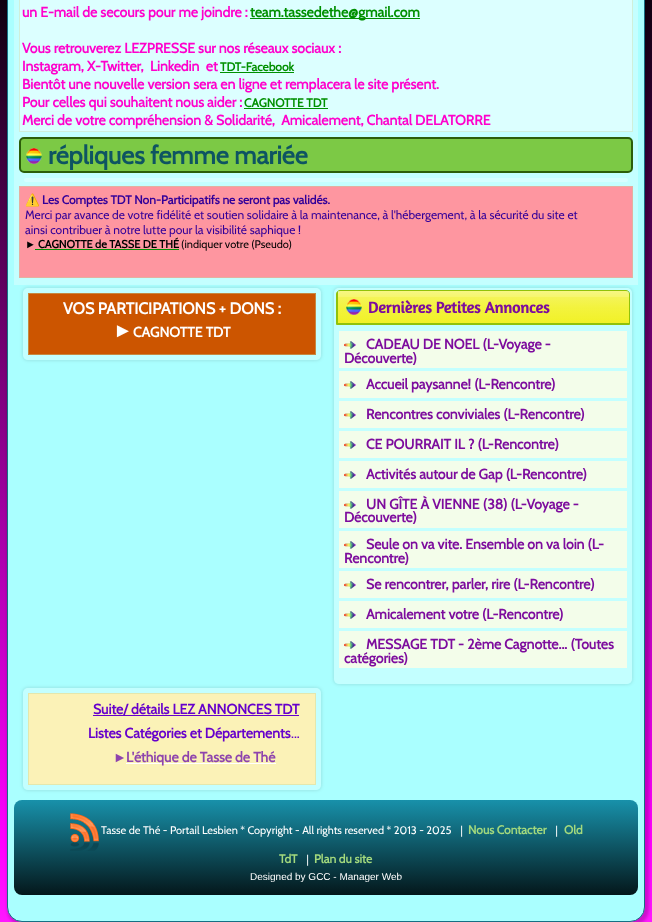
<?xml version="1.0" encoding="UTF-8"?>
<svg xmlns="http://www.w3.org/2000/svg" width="652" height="922">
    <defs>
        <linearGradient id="g1" gradientUnits="userSpaceOnUse" x1="326" y1="0" x2="326" y2="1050"><stop offset="0" stop-color="#0F000F"/><stop offset="0.8" stop-color="#FF00FF"/><stop offset="1" stop-color="#FF3DFF"/></linearGradient>
        <filter id="blur1" x="-50%" y="-200%" width="200%" height="500%"><feGaussianBlur stdDeviation="1.5"/></filter>
        <clipPath id="clip1"><path d="M 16 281 H 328 V 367 H 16 Z M 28 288 H 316 C 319 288 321 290 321 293 V 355 C 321 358 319 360 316 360 H 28 C 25 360 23 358 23 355 V 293 C 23 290 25 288 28 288 Z" clip-rule="evenodd"/></clipPath>
        <clipPath id="clip2"><path d="M 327 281 H 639 V 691 H 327 Z M 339 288 H 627 C 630 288 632 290 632 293 V 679 C 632 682 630 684 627 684 H 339 C 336 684 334 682 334 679 V 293 C 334 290 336 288 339 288 Z" clip-rule="evenodd"/></clipPath>
        <linearGradient id="g2" gradientUnits="userSpaceOnUse" x1="484" y1="291" x2="484" y2="323"><stop offset="0" stop-color="#F7F782"/><stop offset="0.1" stop-color="#F6F679"/><stop offset="0.2" stop-color="#F6F66A"/><stop offset="0.2" stop-color="#F4F457"/><stop offset="0.5" stop-color="#F3F33F"/><stop offset="1" stop-color="#F1F127"/></linearGradient>
        <clipPath id="clip3"><path d="M 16 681 H 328 V 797 H 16 Z M 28 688 H 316 C 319 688 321 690 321 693 V 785 C 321 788 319 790 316 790 H 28 C 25 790 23 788 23 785 V 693 C 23 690 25 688 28 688 Z" clip-rule="evenodd"/></clipPath>
        <linearGradient id="g3" gradientUnits="userSpaceOnUse" x1="326" y1="800" x2="326" y2="895"><stop offset="0" stop-color="#1891AA"/><stop offset="1" stop-color="#04171B"/></linearGradient>
    </defs>
    <rect width="100%" height="100%" fill="#FFFFFF"/>
    <rect x="0" y="0" width="652" height="922" fill="url(#g1)"/>
    <rect x="7" y="-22" width="642" height="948" rx="17" fill="#000000" fill-opacity="0.2" filter="url(#blur1)"/>
    <rect x="7.5" y="-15.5" width="637" height="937" rx="14.5" fill="#AAFFFF" stroke="#166F83"/>
    <rect x="14" y="0" width="624" height="285" fill="#C4FFFF"/>
    <rect x="19.5" y="-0.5" width="613" height="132" fill="#DCFFFF" stroke="#D0EFD9"/>
    <text x="22" y="17" font-family="Cabin" font-size="14" font-weight="700" fill="#FF00CC">un E-mail de secours pour me joindre :</text>
    <rect x="250" y="18" width="170" height="1" fill="#009000"/>
    <text x="250" y="17" font-family="Cabin" font-size="14" font-weight="700" fill="#009000">team.tassedethe@gmail.com</text>
    <text font-family="Cabin" font-size="14" font-weight="700" fill="#FF00CC" xml:space="preserve"><tspan x="22" y="53">Vous retrouverez LEZPRESSE sur nos réseaux sociaux :</tspan><tspan x="22" y="71">Instagram, X-Twitter,  Linkedin  et</tspan></text>
    <text x="220" y="71" font-family="Cabin" font-size="12" font-weight="700" fill="#009000">TDT-Facebook</text>
    <rect x="220" y="72" width="74" height="1" fill="#009000"/>
    <text font-family="Cabin" font-size="14" font-weight="700" fill="#FF00CC">
        <tspan x="22" y="89">Bientôt une nouvelle version sera en ligne et remplacera le site présent.</tspan>
        <tspan x="22" y="107">Pour celles qui souhaitent nous aider :</tspan>
    </text>
    <text x="244" y="107" font-family="Cabin" font-size="12" font-weight="700" fill="#009000">CAGNOTTE TDT</text>
    <rect x="244" y="108" width="84" height="1" fill="#009000"/>
    <text x="22" y="125" font-family="Cabin" font-size="14" font-weight="700" fill="#FF00CC" xml:space="preserve">Merci de votre compréhension &amp; Solidarité,  Amicalement, Chantal DELATORRE</text>
    <rect x="20" y="138" width="612" height="34" rx="4" fill="#7CC945" stroke="#2C5E09" stroke-width="2"/>
    <image x="26" y="148" width="16" height="16" href="img_01.png"/>
    <text x="48" y="164" font-family="Cabin" font-size="25.25" font-weight="700" fill="#0E5462">répliques femme mariée</text>
    <rect x="24" y="178" width="604" height="4" rx="2" fill="#D6FFFF"/>
    <rect x="19.5" y="186.5" width="613" height="91" fill="#FE96A0" stroke="#E4B0A0"/>
    <text x="25" y="204" font-family="Noto Color Emoji" font-size="12" font-weight="700" fill="#330099">⚠️</text>
    <text x="42" y="204" font-family="Cabin" font-size="12" font-weight="700" fill="#330099">Les Comptes TDT Non-Participatifs ne seront pas validés.</text>
    <text font-family="Cabin" font-size="12" fill="#330099">
        <tspan x="25" y="219">Merci par avance de votre fidélité et soutien solidaire à la maintenance, à l'hébergement, à la sécurité du site et</tspan>
        <tspan x="25" y="234">ainsi contribuer à notre lutte pour la visibilité saphique !</tspan>
    </text>
    <text x="25" y="248" font-family="Liberation Sans" font-size="11" fill="#000000">►</text>
    <rect x="35" y="249" width="144" height="1" fill="#009000"/>
    <text x="38" y="248" font-family="Cabin" font-size="11" font-weight="700" fill="#000000">CAGNOTTE de TASSE DE THÉ</text>
    <text x="181" y="248" font-family="Cabin" font-size="11" fill="#000000">(indiquer votre (Pseudo)</text>
    <g clip-path="url(#clip1)">
        <rect x="22" y="287" width="300" height="74" rx="6" fill="#000000" fill-opacity="0.09" filter="url(#blur1)"/>
    </g>
    <rect x="23" y="288" width="298" height="72" rx="5" fill="#FFFFFF" fill-opacity="0.3"/>
    <rect x="28.5" y="293.5" width="287" height="61" fill="#CC5500" stroke="#C68940"/>
    <text x="63" y="314" font-family="Cabin" font-size="16" font-weight="700" fill="#FFFFFF">VOS PARTICIPATIONS + DONS :</text>
    <text x="113" y="337" font-family="Liberation Sans" font-size="20" font-weight="700" fill="#FFFFFF">►</text>
    <text x="133" y="337" font-family="Cabin" font-size="14" font-weight="700" fill="#FFFFFF">CAGNOTTE TDT</text>
    <g clip-path="url(#clip2)">
        <rect x="333" y="287" width="300" height="398" rx="6" fill="#000000" fill-opacity="0.09" filter="url(#blur1)"/>
    </g>
    <rect x="334" y="288" width="298" height="396" rx="5" fill="#FFFFFF" fill-opacity="0.3"/>
    <path d="M 340 291 H 626 C 628 291 629 292 629 294 V 323 H 338 V 294 C 338 292 339 291 340 291 Z" fill="url(#g2)"/>
    <path d="M 340 290.5 H 626 C 628 290.5 629.5 292 629.5 294 V 324.5 H 336.5 V 294 C 336.5 292 338 290.5 340 290.5 Z" fill="none" stroke="#91C20A"/>
    <rect x="336" y="323" width="294" height="1" fill="#91C20A"/>
    <rect x="337" y="292" width="1" height="33" fill="#91C20A"/>
    <image x="346" y="299" width="16" height="16" href="img_02.png"/>
    <text x="368" y="313" font-family="Amaranth" font-size="16" font-weight="700" fill="#7D0C9D">Dernières Petites Annonces</text>
    <rect x="339" y="331" width="288" height="37" fill="#F3FDEA"/>
    <image x="344" y="341" width="12" height="8" href="img_03.png"/>
    <text x="366" y="349" font-family="Cabin" font-size="14" font-weight="700" fill="#7D0C9D">CADEAU DE NOEL (L-Voyage -</text>
    <text x="344" y="363" font-family="Cabin" font-size="14" font-weight="700" fill="#7D0C9D">Découverte)</text>
    <rect x="339" y="371" width="288" height="27" fill="#F3FDEA"/>
    <image x="344" y="381" width="12" height="8" href="img_03.png"/>
    <text x="366" y="389" font-family="Cabin" font-size="14" font-weight="700" fill="#7D0C9D">Accueil paysanne! (L-Rencontre)</text>
    <rect x="339" y="401" width="288" height="27" fill="#F3FDEA"/>
    <image x="344" y="411" width="12" height="8" href="img_03.png"/>
    <text x="366" y="419" font-family="Cabin" font-size="14" font-weight="700" fill="#7D0C9D">Rencontres conviviales (L-Rencontre)</text>
    <rect x="339" y="431" width="288" height="27" fill="#F3FDEA"/>
    <image x="344" y="441" width="12" height="8" href="img_03.png"/>
    <text x="366" y="449" font-family="Cabin" font-size="14" font-weight="700" fill="#7D0C9D">CE POURRAIT IL ? (L-Rencontre)</text>
    <rect x="339" y="461" width="288" height="27" fill="#F3FDEA"/>
    <image x="344" y="471" width="12" height="8" href="img_03.png"/>
    <text x="366" y="479" font-family="Cabin" font-size="14" font-weight="700" fill="#7D0C9D">Activités autour de Gap (L-Rencontre)</text>
    <rect x="339" y="491" width="288" height="37" fill="#F3FDEA"/>
    <image x="344" y="501" width="12" height="8" href="img_03.png"/>
    <text x="366" y="509" font-family="Cabin" font-size="14" font-weight="700" fill="#7D0C9D">UN GÎTE À VIENNE (38) (L-Voyage -</text>
    <text x="344" y="522" font-family="Cabin" font-size="14" font-weight="700" fill="#7D0C9D">Découverte)</text>
    <rect x="339" y="531" width="288" height="37" fill="#F3FDEA"/>
    <image x="344" y="541" width="12" height="8" href="img_03.png"/>
    <text x="366" y="549" font-family="Cabin" font-size="14" font-weight="700" fill="#7D0C9D">Seule on va vite. Ensemble on va loin (L-</text>
    <text x="344" y="563" font-family="Cabin" font-size="14" font-weight="700" fill="#7D0C9D">Rencontre)</text>
    <rect x="339" y="571" width="288" height="27" fill="#F3FDEA"/>
    <image x="344" y="581" width="12" height="8" href="img_03.png"/>
    <text x="366" y="589" font-family="Cabin" font-size="14" font-weight="700" fill="#7D0C9D">Se rencontrer, parler, rire (L-Rencontre)</text>
    <rect x="339" y="601" width="288" height="27" fill="#F3FDEA"/>
    <image x="344" y="611" width="12" height="8" href="img_03.png"/>
    <text x="366" y="619" font-family="Cabin" font-size="14" font-weight="700" fill="#7D0C9D">Amicalement votre (L-Rencontre)</text>
    <rect x="339" y="631" width="288" height="37" fill="#F3FDEA"/>
    <image x="344" y="641" width="12" height="8" href="img_03.png"/>
    <text x="366" y="649" font-family="Cabin" font-size="14" font-weight="700" fill="#7D0C9D">MESSAGE TDT - 2ème Cagnotte... (Toutes</text>
    <text x="344" y="663" font-family="Cabin" font-size="14" font-weight="700" fill="#7D0C9D">catégories)</text>
    <g clip-path="url(#clip3)">
        <rect x="22" y="687" width="300" height="104" rx="6" fill="#000000" fill-opacity="0.09" filter="url(#blur1)"/>
    </g>
    <rect x="23" y="688" width="298" height="102" rx="5" fill="#FFFFFF" fill-opacity="0.3"/>
    <rect x="28.5" y="693.5" width="287" height="91" fill="#FBF2B7" stroke="#E3E7AD"/>
    <rect x="93" y="715" width="206" height="1" fill="#6600CC"/>
    <text x="93" y="714" font-family="Cabin" font-size="14" font-weight="700" fill="#6600CC">Suite/ détails LEZ ANNONCES TDT</text>
    <text x="88" y="738" font-family="Cabin" font-size="14" font-weight="700" fill="#6600CC">Listes Catégories et Départements</text>
    <text x="291" y="738" font-family="Cabin" font-size="14" fill="#6600CC">...</text>
    <text x="113" y="762" font-family="Liberation Sans" font-size="14" fill="#8E44AD">►</text>
    <rect x="126" y="763" width="150" height="1" fill="#FFFFFF"/>
    <text x="126" y="762" font-family="Cabin" font-size="14" font-weight="700" fill="#8E44AD">L'éthique de Tasse de Thé</text>
    <rect x="14" y="800" width="624" height="95" rx="8" fill="url(#g3)"/>
    <image x="70" y="813" width="29" height="38" href="img_04.png"/>
    <text x="101" y="834" font-family="Cabin" font-size="11" fill="#FFFFFF">Tasse de Thé - Portail Lesbien * Copyright - All rights reserved * 2013 - 2025</text>
    <text x="457" y="834" font-family="DejaVu Sans" font-size="11" fill="#FFFFFF">❘</text>
    <text x="468" y="834" font-family="Cabin" font-size="12" font-weight="700" fill="#A3D97D">Nous Contacter</text>
    <text x="552" y="834" font-family="DejaVu Sans" font-size="11" fill="#FFFFFF">❘</text>
    <text x="564" y="834" font-family="Cabin" font-size="12" font-weight="700" fill="#A3D97D">Old</text>
    <text x="279" y="863" font-family="Cabin" font-size="12" font-weight="700" fill="#A3D97D">TdT</text>
    <text x="303" y="863" font-family="DejaVu Sans" font-size="11" fill="#FFFFFF">❘</text>
    <text x="314" y="863" font-family="Cabin" font-size="12" font-weight="700" fill="#A3D97D">Plan du site</text>
    <text x="250" y="880" font-family="Liberation Sans" font-size="10" fill="#FFFFFF">Designed by GCC - Manager Web</text>
</svg>
